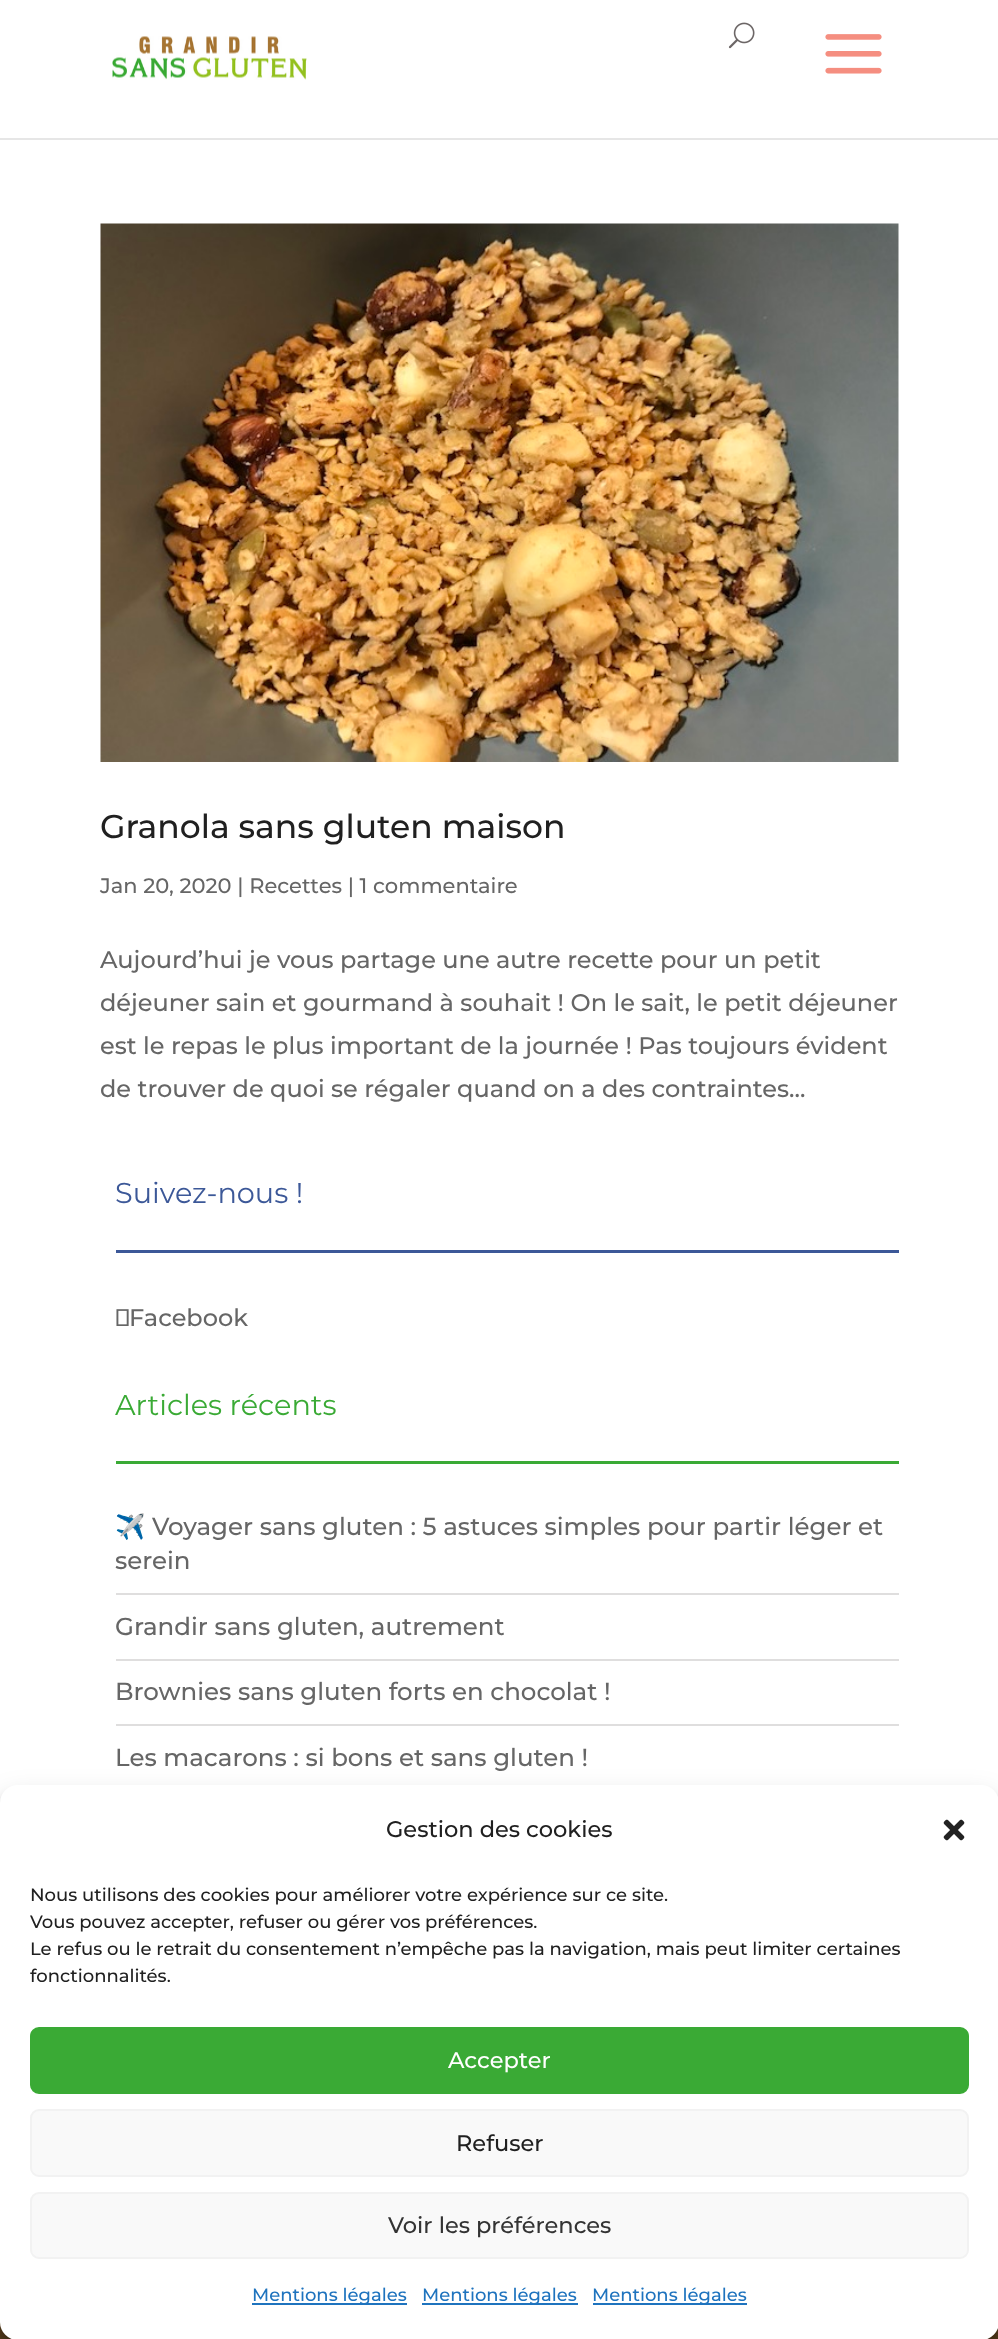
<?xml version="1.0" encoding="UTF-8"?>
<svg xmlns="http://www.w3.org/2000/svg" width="998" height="2339">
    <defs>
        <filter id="blur1" x="-50%" y="-200%" width="200%" height="500%"><feGaussianBlur stdDeviation="4.5"/></filter>
        <filter id="blur2" x="-50%" y="-200%" width="200%" height="500%"><feGaussianBlur stdDeviation="15"/></filter>
    </defs>
    <rect width="100%" height="100%" fill="#FFFFFF"/>
    <rect x="0" y="138" width="998" height="2" fill="#E6E6E6"/>
    <image x="112" y="36" width="195" height="44" href="img_01.png"/>
    <image x="728" y="22" width="27" height="27" href="img_02.png"/>
    <image x="825" y="34" width="57" height="40" href="img_03.png"/>
    <image x="100" y="223" width="799" height="539" href="img_04.png"/>
    <text x="100" y="838" font-family="Montserrat" font-size="33" font-weight="100" fill="#202020">Granola sans gluten maison</text>
    <text x="100" y="893" font-family="Montserrat" font-size="21" font-weight="100" fill="#666666">Jan 20, 2020 | Recettes | 1 commentaire</text>
    <text font-family="Montserrat" font-size="24" font-weight="100" fill="#666666">
        <tspan x="100" y="968">Aujourd’hui je vous partage une autre recette pour un petit</tspan>
        <tspan x="100" y="1011">déjeuner sain et gourmand à souhait ! On le sait, le petit déjeuner</tspan>
        <tspan x="100" y="1054">est le repas le plus important de la journée ! Pas toujours évident</tspan>
        <tspan x="100" y="1097">de trouver de quoi se régaler quand on a des contraintes...</tspan>
    </text>
    <rect x="116" y="1250" width="783" height="3" fill="#3C5898"/>
    <text x="115" y="1203" font-family="'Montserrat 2'" font-size="28.75" font-weight="100" fill="#3C5898">Suivez-nous !</text>
    <image x="116" y="1309" width="13" height="17" href="img_05.png"/>
    <text x="129" y="1326" font-family="Montserrat" font-size="24" font-weight="100" fill="#666666">Facebook</text>
    <rect x="116" y="1461" width="783" height="3" fill="#3AAA35"/>
    <text x="115" y="1415" font-family="'Montserrat 2'" font-size="28.75" font-weight="100" fill="#3AAA35">Articles récents</text>
    <rect x="116" y="1593" width="783" height="2" fill="#DFDEDE"/>
    <text x="115" y="1535" font-family="Noto Color Emoji" font-size="24.5" fill="#666666">✈️</text>
    <text x="152" y="1535" font-family="Montserrat" font-size="24.5" font-weight="100" fill="#666666">Voyager sans gluten : 5 astuces simples pour partir léger et</text>
    <text x="115" y="1569" font-family="Montserrat" font-size="24.5" font-weight="100" fill="#666666">serein</text>
    <rect x="116" y="1659" width="783" height="2" fill="#DFDEDE"/>
    <text x="115" y="1635" font-family="Montserrat" font-size="24.5" font-weight="100" fill="#666666">Grandir sans gluten, autrement</text>
    <rect x="116" y="1724" width="783" height="2" fill="#DFDEDE"/>
    <text x="115" y="1700" font-family="Montserrat" font-size="24.5" font-weight="100" fill="#666666">Brownies sans gluten forts en chocolat !</text>
    <text x="115" y="1766" font-family="Montserrat" font-size="24.5" font-weight="100" fill="#666666">Les macarons : si bons et sans gluten !</text>
    <rect x="0" y="2322" width="998" height="17" fill="#5A3F1C"/>
    <rect x="0" y="1794" width="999" height="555" rx="18" fill="#000000" fill-opacity="0.23" filter="url(#blur1)"/>
    <rect x="0" y="1800" width="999" height="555" rx="18" fill="#000000" fill-opacity="0.19" filter="url(#blur2)"/>
    <rect x="0" y="1785" width="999" height="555" rx="18" fill="#FFFFFF"/>
    <text x="386" y="1837" font-family="Montserrat" font-size="22.5" font-weight="100" fill="#202020">Gestion des cookies</text>
    <image x="943" y="1819" width="22" height="22" href="img_06.png"/>
    <text font-family="Montserrat" font-size="18" font-weight="100" fill="#202020">
        <tspan x="30" y="1901">Nous utilisons des cookies pour améliorer votre expérience sur ce site.</tspan>
        <tspan x="30" y="1928">Vous pouvez accepter, refuser ou gérer vos préférences.</tspan>
        <tspan x="30" y="1955">Le refus ou le retrait du consentement n’empêche pas la navigation, mais peut limiter certaines</tspan>
        <tspan x="30" y="1982">fonctionnalités.</tspan>
    </text>
    <rect x="31" y="2028" width="937" height="65" rx="8" fill="#3AAA35" stroke="#3AAA35" stroke-width="2"/>
    <text x="448" y="2068" font-family="Montserrat" font-size="22.5" font-weight="100" fill="#FFFFFF">Accepter</text>
    <rect x="31" y="2110" width="937" height="66" rx="8" fill="#F9F9F9" stroke="#F2F2F2" stroke-width="2"/>
    <text x="456" y="2151" font-family="Montserrat" font-size="22.5" font-weight="100" fill="#202020">Refuser</text>
    <rect x="31" y="2193" width="937" height="65" rx="8" fill="#F9F9F9" stroke="#F2F2F2" stroke-width="2"/>
    <text x="388" y="2233" font-family="Montserrat" font-size="22.5" font-weight="100" fill="#333333">Voir les préférences</text>
    <rect x="252" y="2303" width="155" height="2" fill="#1E73BE"/>
    <text x="252" y="2301" font-family="Montserrat" font-size="18" font-weight="100" fill="#1E73BE">Mentions légales</text>
    <rect x="422" y="2303" width="156" height="2" fill="#1E73BE"/>
    <text x="422" y="2301" font-family="Montserrat" font-size="18" font-weight="100" fill="#1E73BE">Mentions légales</text>
    <rect x="593" y="2303" width="154" height="2" fill="#1E73BE"/>
    <text x="592" y="2301" font-family="Montserrat" font-size="18" font-weight="100" fill="#1E73BE">Mentions légales</text>
</svg>
